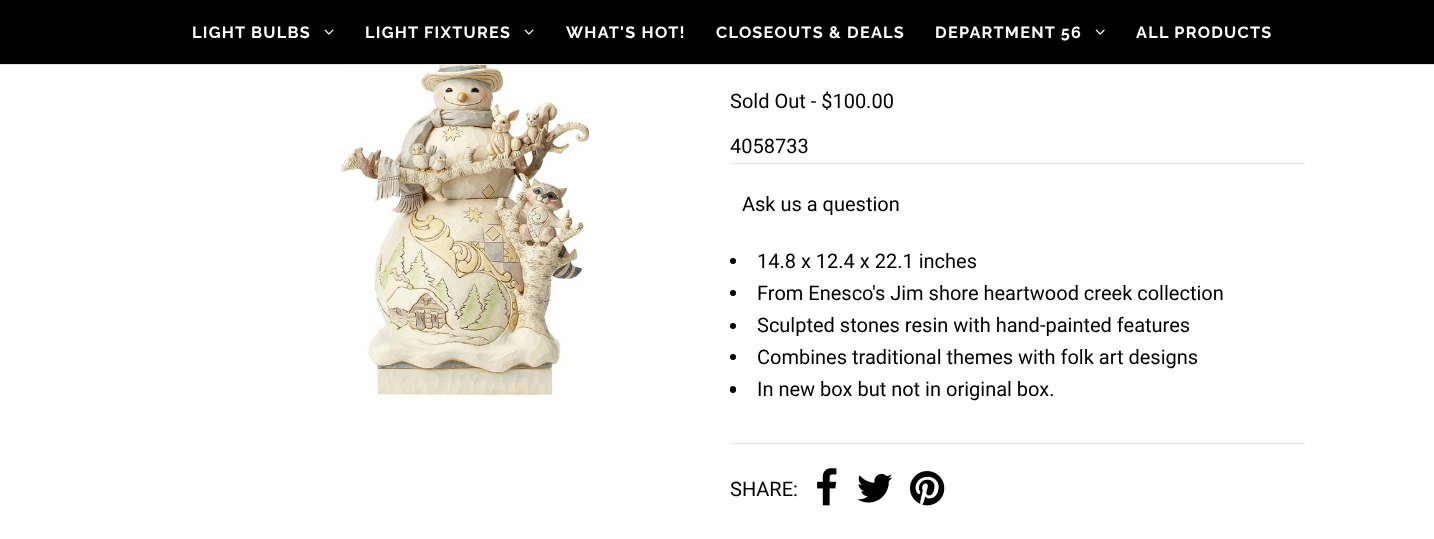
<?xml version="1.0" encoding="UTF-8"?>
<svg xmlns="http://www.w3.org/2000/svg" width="1434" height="539">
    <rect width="100%" height="100%" fill="#FFFFFF"/>
    <rect x="0" y="0" width="1434" height="64" fill="#000000"/>
    <rect x="0" y="64" width="1434" height="1" fill="#E5E5E5"/>
    <text x="192" y="38" font-family="Raleway" font-size="16.25" font-weight="700" letter-spacing="1.25" fill="#FFFFFF">LIGHT BULBS</text>
    <image x="324" y="29" width="10" height="6" href="img_01.png"/>
    <text x="365" y="38" font-family="Raleway" font-size="16.25" font-weight="700" letter-spacing="1.25" fill="#FFFFFF">LIGHT FIXTURES</text>
    <image x="524" y="29" width="10" height="6" href="img_01.png"/>
    <text x="566" y="38" font-family="Raleway" font-size="16.25" font-weight="700" letter-spacing="1.25" fill="#FFFFFF">WHAT'S HOT!</text>
    <text x="716" y="38" font-family="Raleway" font-size="16.25" font-weight="700" letter-spacing="1.25" fill="#FFFFFF">CLOSEOUTS &amp; DEALS</text>
    <text x="935" y="38" font-family="Raleway" font-size="16.25" font-weight="700" letter-spacing="1.25" fill="#FFFFFF">DEPARTMENT 56</text>
    <image x="1095" y="29" width="10" height="6" href="img_02.png"/>
    <text x="1136" y="38" font-family="Raleway" font-size="16.25" font-weight="700" letter-spacing="1.25" fill="#FFFFFF">ALL PRODUCTS</text>
    <image x="341" y="65" width="249" height="336" href="img_03.png"/>
    <text x="730" y="108" font-family="Roboto" font-size="20" fill="#000000">Sold Out - $100.00</text>
    <text x="730" y="153" font-family="Roboto" font-size="20" fill="#000000">4058733</text>
    <rect x="730" y="163" width="575" height="1" fill="#E5E5E5"/>
    <text x="742" y="211" font-family="Roboto" font-size="20" fill="#000000">Ask us a question</text>
    <circle cx="733" cy="261" r="3" fill="#000000"/>
    <text x="757" y="268" font-family="Roboto" font-size="20" fill="#000000">14.8 x 12.4 x 22.1 inches</text>
    <circle cx="733" cy="293" r="3" fill="#000000"/>
    <text x="757" y="300" font-family="Roboto" font-size="20" fill="#000000">From Enesco's Jim shore heartwood creek collection</text>
    <circle cx="733" cy="326" r="3" fill="#000000"/>
    <text x="757" y="332" font-family="Roboto" font-size="20" fill="#000000">Sculpted stones resin with hand-painted features</text>
    <circle cx="733" cy="357" r="3" fill="#000000"/>
    <text x="757" y="364" font-family="Roboto" font-size="20" fill="#000000">Combines traditional themes with folk art designs</text>
    <rect x="730" y="386" width="6" height="7" rx="3" fill="#000000"/>
    <text x="757" y="396" font-family="Roboto" font-size="20" fill="#000000">In new box but not in original box.</text>
    <rect x="730" y="443" width="575" height="1" fill="#E5E5E5"/>
    <text x="730" y="496" font-family="Roboto" font-size="20" fill="#000000">SHARE:</text>
    <image x="817" y="468" width="20" height="38" href="img_04.png"/>
    <image x="857" y="473" width="36" height="30" href="img_05.png"/>
    <image x="910" y="471" width="35" height="35" href="img_06.png"/>
</svg>
